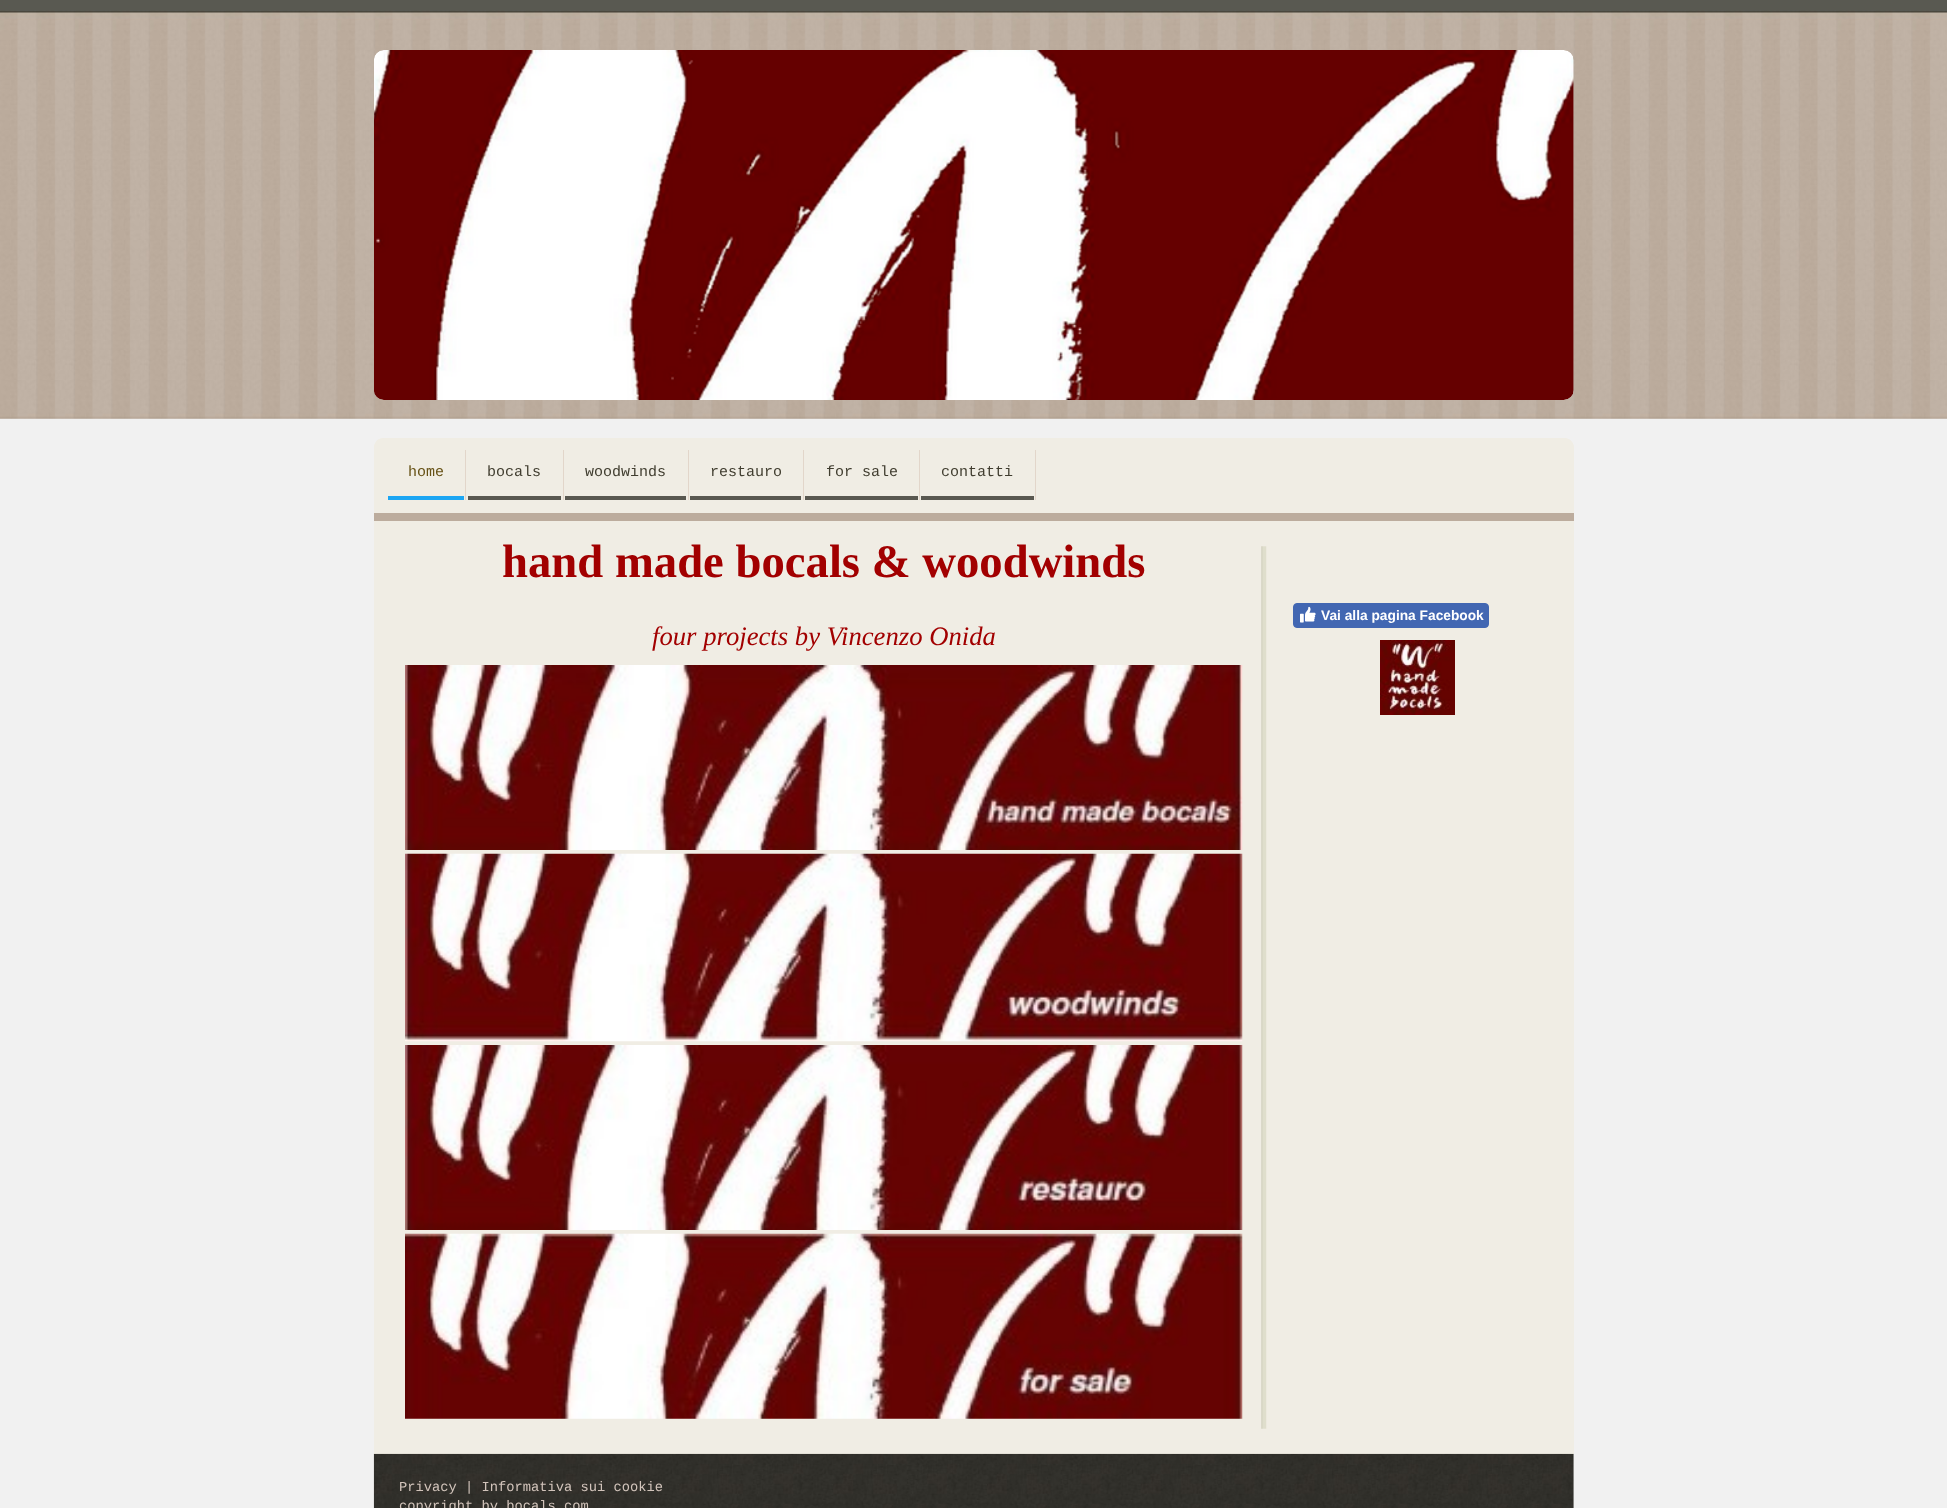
<?xml version="1.0" encoding="UTF-8"?>
<svg xmlns="http://www.w3.org/2000/svg" width="1947" height="1508">
    <rect width="100%" height="100%" fill="#F1F1F1"/>
    <image x="0" y="0" width="1947" height="419" href="img_01.png"/>
    <image x="374" y="50" width="1200" height="350" href="img_02.png"/>
    <path d="M 384 438 H 1564 C 1569.5 438 1574 442.5 1574 448 V 513 H 374 V 448 C 374 442.5 378.5 438 384 438 Z" fill="#F0EDE4"/>
    <path d="M 384 438 H 1564 C 1569 438 1574 442 1574 448 V 512 H 374 V 448 C 374 442 378 438 384 438 Z M 386 450 H 1561 V 512 H 386 Z" fill="#F0EDE4" fill-rule="evenodd"/>
    <rect x="465" y="450" width="1" height="50" fill="#E2D6CA"/>
    <rect x="388" y="496" width="76" height="4" fill="#1CA6F3"/>
    <text x="408" y="476" font-family="Liberation Mono" font-size="15" fill="#665115">home</text>
    <rect x="563" y="450" width="1" height="50" fill="#E2D6CA"/>
    <rect x="468" y="496" width="93" height="4" fill="#595850"/>
    <text x="487" y="476" font-family="Liberation Mono" font-size="15" fill="#403D2F">bocals</text>
    <rect x="688" y="450" width="1" height="50" fill="#E2D6CA"/>
    <rect x="565" y="496" width="121" height="4" fill="#595850"/>
    <text x="585" y="476" font-family="Liberation Mono" font-size="15" fill="#403D2F">woodwinds</text>
    <rect x="803" y="450" width="1" height="50" fill="#E2D6CA"/>
    <rect x="690" y="496" width="111" height="4" fill="#595850"/>
    <text x="710" y="476" font-family="Liberation Mono" font-size="15" fill="#403D2F">restauro</text>
    <rect x="919" y="450" width="1" height="50" fill="#E2D6CA"/>
    <rect x="805" y="496" width="113" height="4" fill="#595850"/>
    <text x="826" y="476" font-family="Liberation Mono" font-size="15" fill="#403D2F">for sale</text>
    <rect x="1035" y="450" width="1" height="50" fill="#E2D6CA"/>
    <rect x="921" y="496" width="113" height="4" fill="#595850"/>
    <text x="941" y="476" font-family="Liberation Mono" font-size="15" fill="#403D2F">contatti</text>
    <rect x="374" y="513" width="1200" height="8" fill="#BCAC9D"/>
    <rect x="374" y="521" width="1200" height="933" fill="#F0EDE4"/>
    <image x="1261" y="546" width="6" height="883" href="img_03.png"/>
    <text x="502" y="577" font-family="Liberation Serif" font-size="46.7" font-weight="700" fill="#A20000">hand made bocals &amp; woodwinds</text>
    <text x="652" y="645" font-family="Liberation Serif" font-size="26.7" font-style="italic" fill="#A20000">four projects by Vincenzo Onida</text>
    <image x="405" y="665" width="838" height="185" href="img_04.png"/>
    <image x="405" y="853" width="838" height="189" href="img_05.png"/>
    <image x="405" y="1045" width="838" height="185" href="img_06.png"/>
    <image x="405" y="1233" width="838" height="186" href="img_07.png"/>
    <rect x="1293.5" y="603.5" width="195" height="24" rx="3.5" fill="#4267B2" stroke="#4267B2"/>
    <image x="1300" y="606" width="16" height="17" href="img_08.png"/>
    <text x="1321" y="620" font-family="Liberation Sans" font-size="13.75" font-weight="700" fill="#FFFFFF">Vai alla pagina Facebook</text>
    <image x="1380" y="640" width="75" height="75" href="img_09.png"/>
    <image x="373" y="1453" width="1201" height="55" href="img_10.png"/>
    <text font-family="Liberation Mono" font-size="13.75" fill="#D2C4BB">
        <tspan x="399" y="1491">Privacy | Informativa sui cookie</tspan>
        <tspan x="399" y="1510">copyright by bocals.com</tspan>
    </text>
</svg>
